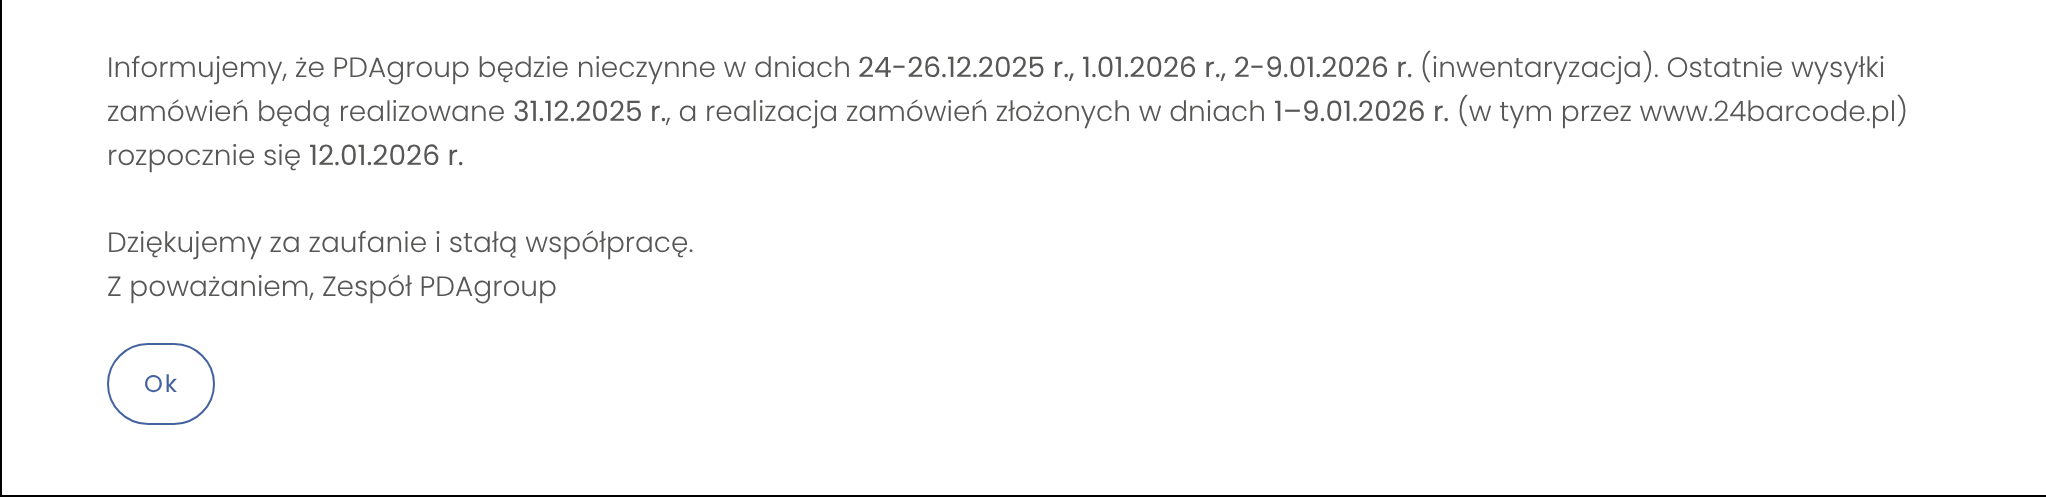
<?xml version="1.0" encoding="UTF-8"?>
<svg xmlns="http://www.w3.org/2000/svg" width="2046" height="497">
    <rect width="100%" height="100%" fill="#FFFFFF"/>
    <rect x="1" y="-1" width="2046" height="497" fill="none" stroke="#000000" stroke-width="2"/>
    <text x="107" y="77" font-family="Poppins" font-size="28" font-weight="300" fill="#575756">Informujemy, że PDAgroup będzie nieczynne w dniach</text>
    <text x="858" y="77" font-family="Poppins" font-size="28" fill="#575756">24-26.12.2025 r., 1.01.2026 r., 2-9.01.2026 r.</text>
    <text x="1420" y="77" font-family="Poppins" font-size="28" font-weight="300" fill="#575756">(inwentaryzacja). Ostatnie wysyłki</text>
    <text x="107" y="121" font-family="Poppins" font-size="28" font-weight="300" fill="#575756">zamówień będą realizowane</text>
    <text x="513" y="121" font-family="Poppins" font-size="28" fill="#575756">31.12.2025 r.</text>
    <text x="666" y="121" font-family="Poppins" font-size="28" font-weight="300" fill="#575756">, a realizacja zamówień złożonych w dniach</text>
    <text x="1274" y="121" font-family="Poppins" font-size="28" fill="#575756">1–9.01.2026 r.</text>
    <text x="1457" y="121" font-family="Poppins" font-size="28" font-weight="300" fill="#575756">(w tym przez www.24barcode.pl)</text>
    <text x="107" y="165" font-family="Poppins" font-size="28" font-weight="300" fill="#575756">rozpocznie się</text>
    <text x="309" y="165" font-family="Poppins" font-size="28" fill="#575756">12.01.2026 r.</text>
    <text font-family="Poppins" font-size="28" font-weight="300" fill="#575756">
        <tspan x="107" y="252">Dziękujemy za zaufanie i stałą współpracę.</tspan>
        <tspan x="107" y="296">Z poważaniem, Zespół PDAgroup</tspan>
    </text>
    <rect x="108" y="344" width="106" height="80" rx="40" fill="none" stroke="#4462A1" stroke-width="2"/>
    <text x="144" y="392" font-family="Poppins" font-size="24" letter-spacing="2" fill="#4462A1">Ok</text>
</svg>
